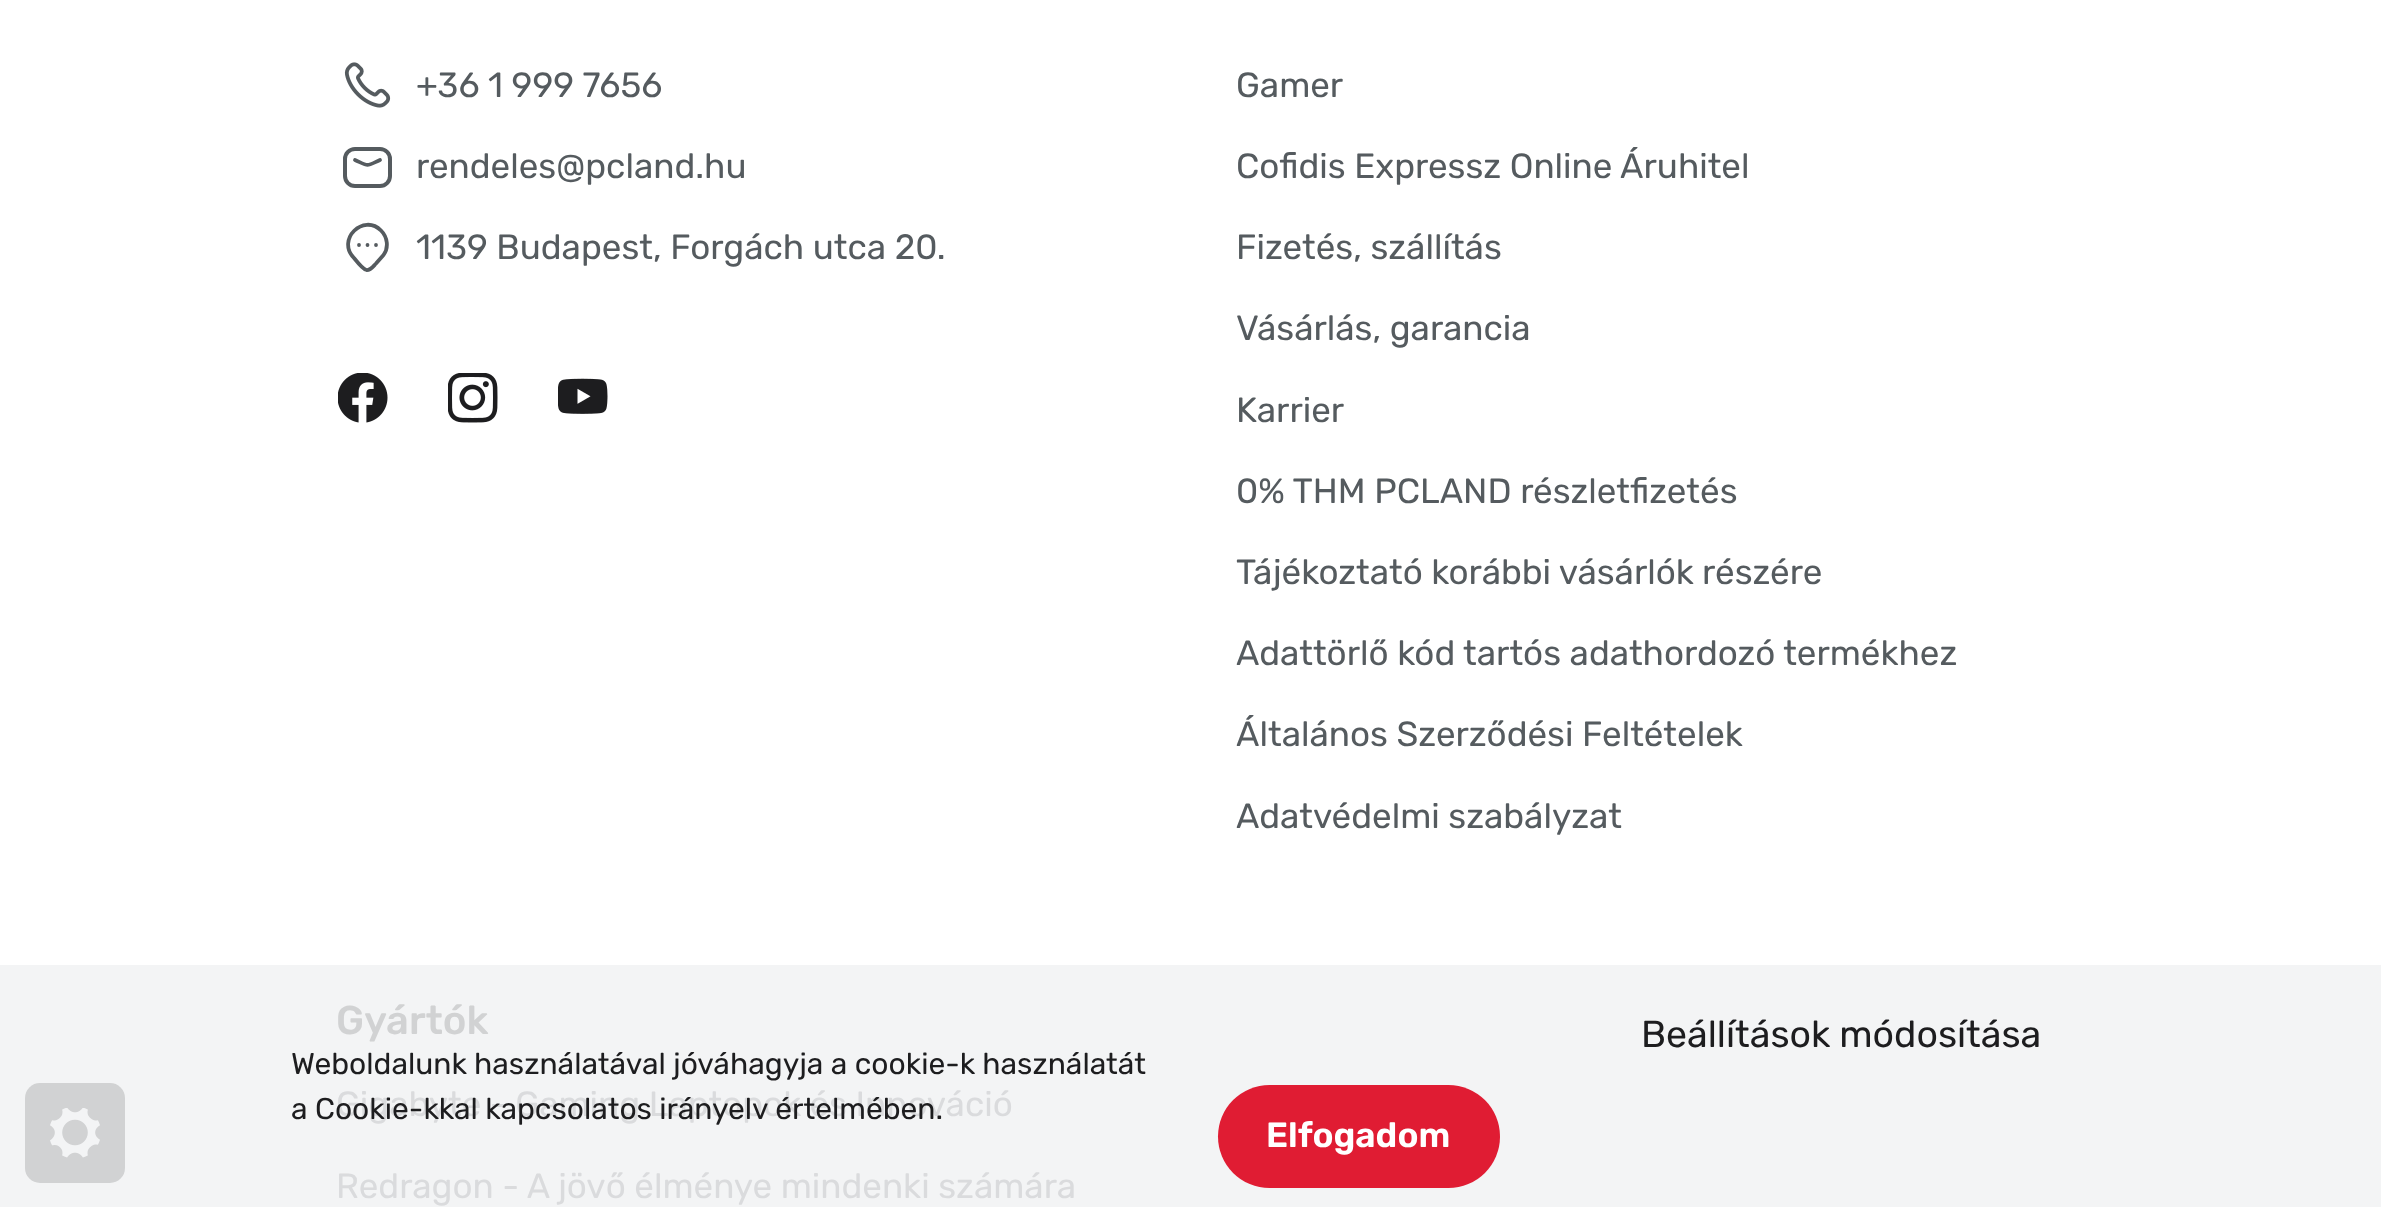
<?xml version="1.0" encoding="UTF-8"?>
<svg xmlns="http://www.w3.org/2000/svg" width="2381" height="1207">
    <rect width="100%" height="100%" fill="#FFFFFF"/>
    <rect x="0" y="965" width="2381" height="242" fill="#F3F4F5"/>
    <image x="344" y="62" width="47" height="46" href="img_01.png"/>
    <text x="416" y="97" font-family="Rubik" font-size="35" fill="#555B5F">+36 1 999 7656</text>
    <rect x="345" y="149" width="45" height="37" rx="10" fill="none" stroke="#555B5F" stroke-width="4"/>
    <path d="M 355 160 C 369.5 166.5 365.5 166.5 380 160" fill="none" stroke="#555B5F" stroke-width="3.8" stroke-linecap="round" stroke-linejoin="round"/>
    <text x="416" y="178" font-family="Rubik" font-size="35" fill="#555B5F">rendeles@pcland.hu</text>
    <path d="M 367.5 245 H 367.5 M 381 230.5 C 387.5 237 389 247.5 383.5 255 L 376 263.5 C 373.5 266 370.5 270.5 366.5 270 C 363.5 269.5 356 260.5 354 258 C 336 239.5 363.5 213 381 230.5 Z M 359 245 H 359 M 376 245 H 376" fill="none" stroke="#555B5F" stroke-width="3.8" stroke-linecap="round" stroke-linejoin="round"/>
    <text x="416" y="259" font-family="Rubik" font-size="35" fill="#555B5F">1139 Budapest, Forgách utca 20.</text>
    <image x="338" y="373" width="50" height="50" href="img_02.png"/>
    <image x="448" y="373" width="50" height="50" href="img_03.png"/>
    <image x="558" y="378" width="50" height="36" href="img_04.png"/>
    <text x="1236" y="97" font-family="Rubik" font-size="35" fill="#555B5F">Gamer</text>
    <text x="1236" y="178" font-family="Rubik" font-size="35" fill="#555B5F">Cofidis Expressz Online Áruhitel</text>
    <text x="1236" y="259" font-family="Rubik" font-size="35" fill="#555B5F">Fizetés, szállítás</text>
    <text x="1236" y="340" font-family="Rubik" font-size="35" fill="#555B5F">Vásárlás, garancia</text>
    <text x="1236" y="422" font-family="Rubik" font-size="35" fill="#555B5F">Karrier</text>
    <text x="1236" y="503" font-family="Rubik" font-size="35" fill="#555B5F">0% THM PCLAND részletfizetés</text>
    <text x="1236" y="584" font-family="Rubik" font-size="35" fill="#555B5F">Tájékoztató korábbi vásárlók részére</text>
    <text x="1236" y="665" font-family="Rubik" font-size="35" fill="#555B5F">Adattörlő kód tartós adathordozó termékhez</text>
    <text x="1236" y="746" font-family="Rubik" font-size="35" fill="#555B5F">Általános Szerződési Feltételek</text>
    <text x="1236" y="828" font-family="Rubik" font-size="35" fill="#555B5F">Adatvédelmi szabályzat</text>
    <text x="336" y="1034" font-family="Rubik" font-size="40" font-weight="500" fill="#D1D2D3">Gyártók</text>
    <text x="336" y="1116" font-family="Rubik" font-size="35" fill="#DADBDD">Gigabyte - Gaming Laptopok és Innováció</text>
    <text x="336" y="1198" font-family="Rubik" font-size="35" fill="#DADBDD">Redragon - A jövő élménye mindenki számára</text>
    <rect x="25" y="1083" width="100" height="100" rx="15" fill="#D1D2D3"/>
    <image x="50" y="1108" width="50" height="50" href="img_05.png"/>
    <text font-family="Rubik" font-size="30" fill="#1D1D1F">
        <tspan x="291" y="1074">Weboldalunk használatával jóváhagyja a cookie-k használatát</tspan>
        <tspan x="291" y="1119">a Cookie-kkal kapcsolatos irányelv értelmében.</tspan>
    </text>
    <text x="1641" y="1047" font-family="Rubik" font-size="37.5" fill="#1D1D1F">Beállítások módosítása</text>
    <rect x="1218" y="1085" width="282" height="103" rx="51.5" fill="#E01C33"/>
    <text x="1266" y="1147" font-family="Rubik" font-size="35" font-weight="600" fill="#FFFFFF">Elfogadom</text>
</svg>
